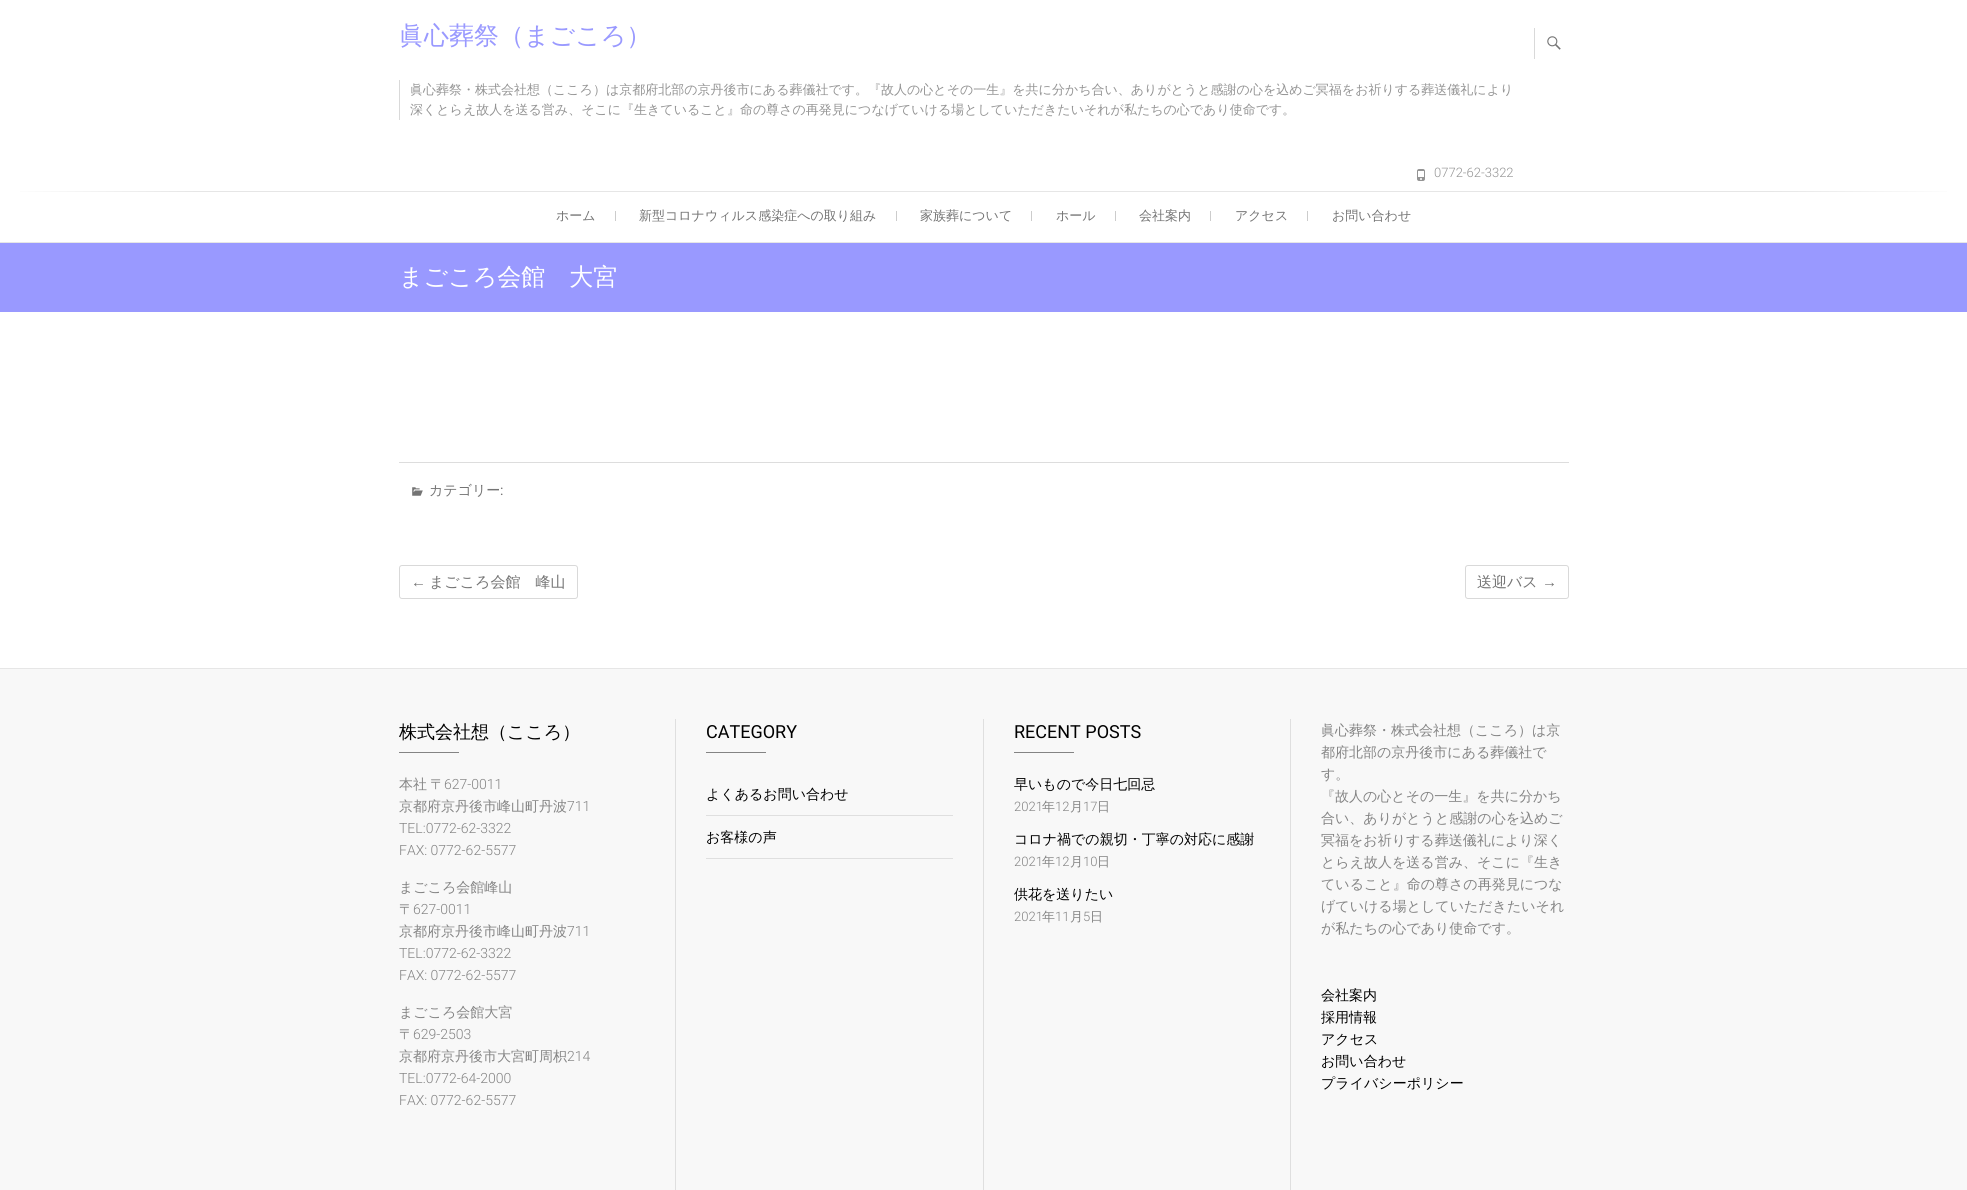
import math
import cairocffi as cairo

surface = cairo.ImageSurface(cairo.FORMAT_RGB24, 1967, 1190)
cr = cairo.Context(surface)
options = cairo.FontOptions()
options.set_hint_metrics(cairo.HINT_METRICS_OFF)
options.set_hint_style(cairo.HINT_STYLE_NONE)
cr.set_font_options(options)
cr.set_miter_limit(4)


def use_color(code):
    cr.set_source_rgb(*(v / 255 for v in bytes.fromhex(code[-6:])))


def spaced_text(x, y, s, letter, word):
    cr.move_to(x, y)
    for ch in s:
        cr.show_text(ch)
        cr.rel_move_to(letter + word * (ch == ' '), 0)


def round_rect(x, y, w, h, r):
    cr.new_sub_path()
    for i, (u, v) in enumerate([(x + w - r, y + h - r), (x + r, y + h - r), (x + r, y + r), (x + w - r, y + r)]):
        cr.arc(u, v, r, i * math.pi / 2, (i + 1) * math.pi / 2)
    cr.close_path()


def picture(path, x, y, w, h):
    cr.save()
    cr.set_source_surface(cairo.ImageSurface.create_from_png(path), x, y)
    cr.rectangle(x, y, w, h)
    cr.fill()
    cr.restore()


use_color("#ffffff")
cr.paint()
cr.select_font_face("WenQuanYi Zen Hei Medium")
cr.set_font_size(25)
use_color("#9999ff")
cr.move_to(399, 44)
cr.show_text("眞心葬祭（まごころ）")
use_color("#d9d9d9")
cr.rectangle(399, 80, 1, 40)
cr.fill()
cr.set_font_size(13)
use_color("#949494")
cr.move_to(410, 94)
cr.show_text("眞心葬祭・株式会社想（こころ）は京都府北部の京丹後市にある葬儀社です。『故人の心とその一生』を共に分かち合い、ありがとうと感謝の心を込めご冥福をお祈りする葬送儀礼により")
cr.move_to(410, 114)
cr.show_text("深くとらえ故人を送る営み、そこに『生きていること』命の尊さの再発見につなげていける場としていただきたいそれが私たちの心であり使命です。")
use_color("#d9d9d9")
cr.rectangle(1534, 28, 1, 31)
cr.fill()
picture("img1.png", 1547, 36, 14, 14)
picture("img2.png", 1417, 169, 8, 12)
cr.select_font_face("Roboto Light")
use_color("#949494")
cr.move_to(1434, 177)
cr.show_text("0772-62-3322")
use_color("#e6e6e6")
cr.rectangle(0, 242, 1967, 1)
cr.fill()
gradient = cairo.LinearGradient(0, 192, 1967, 191)
gradient.add_color_stop_rgba(0, 1, 1, 1, 1)
gradient.add_color_stop_rgba(0.1, 0.902, 0.902, 0.902, 1)
gradient.add_color_stop_rgba(0.9, 0.902, 0.902, 0.902, 1)
gradient.add_color_stop_rgba(1, 1, 1, 1, 1)
cr.set_source(gradient)
cr.rectangle(20, 191, 1927, 1)
cr.fill()
cr.select_font_face("WenQuanYi Zen Hei Medium")
use_color("#747474")
cr.move_to(556, 220)
cr.show_text("ホーム")
use_color("#cccccc")
cr.rectangle(615, 211, 1, 10)
cr.fill()
use_color("#747474")
cr.move_to(639, 220)
cr.show_text("新型コロナウィルス感染症への取り組み")
use_color("#cccccc")
cr.rectangle(896, 211, 1, 10)
cr.fill()
use_color("#747474")
cr.move_to(920, 220)
cr.show_text("家族葬について")
use_color("#cccccc")
cr.rectangle(1031, 211, 1, 10)
cr.fill()
use_color("#747474")
cr.move_to(1056, 220)
cr.show_text("ホール")
use_color("#cccccc")
cr.rectangle(1115, 211, 1, 10)
cr.fill()
use_color("#747474")
cr.move_to(1139, 220)
cr.show_text("会社案内")
use_color("#cccccc")
cr.rectangle(1210, 211, 1, 10)
cr.fill()
use_color("#747474")
cr.move_to(1235, 220)
cr.show_text("アクセス")
use_color("#cccccc")
cr.rectangle(1307, 211, 1, 10)
cr.fill()
use_color("#747474")
cr.move_to(1332, 220)
cr.show_text("お問い合わせ")
use_color("#9999ff")
cr.rectangle(0, 243, 1967, 69)
cr.fill()
cr.set_font_size(24)
use_color("#ffffff")
cr.move_to(399, 285)
cr.show_text("まごころ会館　大宮")
use_color("#dddddd")
cr.rectangle(399, 462, 1170, 1)
cr.fill()
picture("img3.png", 412, 487, 11, 9)
cr.set_font_size(14)
use_color("#747474")
cr.move_to(429, 495)
cr.show_text("カテゴリー")
cr.select_font_face("Roboto")
cr.move_to(500, 495)
cr.show_text(":")
round_rect(399.5, 565.5, 178, 33, 2.5)
use_color("#d9d9d9")
cr.set_line_width(1)
cr.stroke()
cr.select_font_face("Liberation Sans")
cr.set_font_size(15)
use_color("#747474")
cr.move_to(411, 587)
cr.show_text("←")
cr.select_font_face("WenQuanYi Zen Hei Medium")
cr.move_to(429, 587)
cr.show_text("まごころ会館　峰山")
round_rect(1465.5, 565.5, 103, 33, 2.5)
use_color("#d9d9d9")
cr.stroke()
use_color("#747474")
cr.move_to(1477, 587)
cr.show_text("送迎バス")
cr.select_font_face("Liberation Sans")
cr.move_to(1542, 587)
cr.show_text("→")
use_color("#e6e6e6")
cr.rectangle(0, 668, 1967, 1)
cr.fill()
use_color("#f8f8f8")
cr.rectangle(0, 669, 1967, 521)
cr.fill()
use_color("#dfdfdf")
cr.rectangle(675, 719, 1, 471)
cr.fill()
cr.select_font_face("WenQuanYi Zen Hei Medium")
cr.set_font_size(18)
use_color("#000000")
cr.move_to(399, 738)
cr.show_text("株式会社想（こころ）")
use_color("#848484")
cr.rectangle(399, 752, 60, 1)
cr.fill()
cr.set_font_size(14)
spaced_text(399, 789, "本社 〒", 0, -1)
cr.select_font_face("Roboto Light")
cr.move_to(444, 789)
cr.show_text("627-0011")
cr.select_font_face("WenQuanYi Zen Hei Medium")
cr.move_to(399, 811)
cr.show_text("京都府京丹後市峰山町丹波")
cr.select_font_face("Roboto Light")
cr.move_to(567, 811)
cr.show_text("711")
cr.move_to(399, 833)
cr.show_text("TEL:0772-62-3322")
cr.move_to(399, 855)
cr.show_text("FAX: 0772-62-5577")
cr.select_font_face("WenQuanYi Zen Hei Medium")
cr.move_to(399, 892)
cr.show_text("まごころ会館峰山")
cr.move_to(399, 914)
cr.show_text("〒")
cr.select_font_face("Roboto Light")
cr.move_to(413, 914)
cr.show_text("627-0011")
cr.select_font_face("WenQuanYi Zen Hei Medium")
cr.move_to(399, 936)
cr.show_text("京都府京丹後市峰山町丹波")
cr.select_font_face("Roboto Light")
cr.move_to(567, 936)
cr.show_text("711")
cr.move_to(399, 958)
cr.show_text("TEL:0772-62-3322")
cr.move_to(399, 980)
cr.show_text("FAX: 0772-62-5577")
cr.select_font_face("WenQuanYi Zen Hei Medium")
cr.move_to(399, 1017)
cr.show_text("まごころ会館大宮")
cr.move_to(399, 1039)
cr.show_text("〒")
cr.select_font_face("Roboto Light")
cr.move_to(413, 1039)
cr.show_text("629-2503")
cr.select_font_face("WenQuanYi Zen Hei Medium")
cr.move_to(399, 1061)
cr.show_text("京都府京丹後市大宮町周枳")
cr.select_font_face("Roboto Light")
cr.move_to(567, 1061)
cr.show_text("214")
cr.move_to(399, 1083)
cr.show_text("TEL:0772-64-2000")
cr.move_to(399, 1105)
cr.show_text("FAX: 0772-62-5577")
use_color("#dfdfdf")
cr.rectangle(983, 719, 1, 471)
cr.fill()
cr.select_font_face("Roboto")
cr.set_font_size(18)
use_color("#000000")
cr.move_to(706, 738)
cr.show_text("CATEGORY")
use_color("#848484")
cr.rectangle(706, 752, 60, 1)
cr.fill()
use_color("#dfdfdf")
cr.rectangle(706, 815, 247, 1)
cr.fill()
cr.select_font_face("WenQuanYi Zen Hei Medium")
cr.set_font_size(14)
use_color("#000000")
cr.move_to(706, 799)
cr.show_text("よくあるお問い合わせ")
use_color("#dfdfdf")
cr.rectangle(706, 858, 247, 1)
cr.fill()
use_color("#000000")
cr.move_to(706, 842)
cr.show_text("お客様の声")
use_color("#dfdfdf")
cr.rectangle(1290, 719, 1, 471)
cr.fill()
cr.select_font_face("Roboto")
cr.set_font_size(18)
use_color("#000000")
cr.move_to(1014, 738)
cr.show_text("RECENT POSTS")
use_color("#848484")
cr.rectangle(1014, 752, 60, 1)
cr.fill()
cr.select_font_face("WenQuanYi Zen Hei Medium")
cr.set_font_size(14)
use_color("#000000")
cr.move_to(1014, 789)
cr.show_text("早いもので今日七回忌")
cr.select_font_face("Roboto Light")
cr.set_font_size(13)
use_color("#848484")
cr.move_to(1014, 811)
cr.show_text("2021")
cr.select_font_face("WenQuanYi Zen Hei Medium")
cr.move_to(1042, 811)
cr.show_text("年")
cr.select_font_face("Roboto Light")
cr.move_to(1055, 811)
cr.show_text("12")
cr.select_font_face("WenQuanYi Zen Hei Medium")
cr.move_to(1070, 811)
cr.show_text("月")
cr.select_font_face("Roboto Light")
cr.move_to(1083, 811)
cr.show_text("17")
cr.select_font_face("WenQuanYi Zen Hei Medium")
cr.move_to(1097, 811)
cr.show_text("日")
cr.set_font_size(14)
use_color("#000000")
cr.move_to(1014, 844)
cr.show_text("コロナ禍での親切・丁寧の対応に感謝")
cr.select_font_face("Roboto Light")
cr.set_font_size(13)
use_color("#848484")
cr.move_to(1014, 866)
cr.show_text("2021")
cr.select_font_face("WenQuanYi Zen Hei Medium")
cr.move_to(1042, 866)
cr.show_text("年")
cr.select_font_face("Roboto Light")
cr.move_to(1055, 866)
cr.show_text("12")
cr.select_font_face("WenQuanYi Zen Hei Medium")
cr.move_to(1070, 866)
cr.show_text("月")
cr.select_font_face("Roboto Light")
cr.move_to(1083, 866)
cr.show_text("10")
cr.select_font_face("WenQuanYi Zen Hei Medium")
cr.move_to(1097, 866)
cr.show_text("日")
cr.set_font_size(14)
use_color("#000000")
cr.move_to(1014, 899)
cr.show_text("供花を送りたい")
cr.select_font_face("Roboto Light")
cr.set_font_size(13)
use_color("#848484")
cr.move_to(1014, 921)
cr.show_text("2021")
cr.select_font_face("WenQuanYi Zen Hei Medium")
cr.move_to(1042, 921)
cr.show_text("年")
cr.select_font_face("Roboto Light")
cr.move_to(1055, 921)
cr.show_text("11")
cr.select_font_face("WenQuanYi Zen Hei Medium")
cr.move_to(1070, 921)
cr.show_text("月")
cr.select_font_face("Roboto Light")
cr.move_to(1083, 921)
cr.show_text("5")
cr.select_font_face("WenQuanYi Zen Hei Medium")
cr.move_to(1090, 921)
cr.show_text("日")
cr.set_font_size(14)
cr.move_to(1321, 735)
cr.show_text("眞心葬祭・株式会社想（こころ）は京")
cr.move_to(1321, 757)
cr.show_text("都府北部の京丹後市にある葬儀社で")
cr.move_to(1321, 779)
cr.show_text("す。")
cr.move_to(1321, 801)
cr.show_text("『故人の心とその一生』を共に分かち")
cr.move_to(1321, 823)
cr.show_text("合い、ありがとうと感謝の心を込めご")
cr.move_to(1321, 845)
cr.show_text("冥福をお祈りする葬送儀礼により深く")
cr.move_to(1321, 867)
cr.show_text("とらえ故人を送る営み、そこに『生き")
cr.move_to(1321, 889)
cr.show_text("ていること』命の尊さの再発見につな")
cr.move_to(1321, 911)
cr.show_text("げていける場としていただきたいそれ")
cr.move_to(1321, 933)
cr.show_text("が私たちの心であり使命です。")
use_color("#000000")
cr.move_to(1321, 1000)
cr.show_text("会社案内")
cr.move_to(1321, 1022)
cr.show_text("採用情報")
cr.move_to(1321, 1044)
cr.show_text("アクセス")
cr.move_to(1321, 1066)
cr.show_text("お問い合わせ")
cr.move_to(1321, 1088)
cr.show_text("プライバシーポリシー")
surface.write_to_png("result.png")
